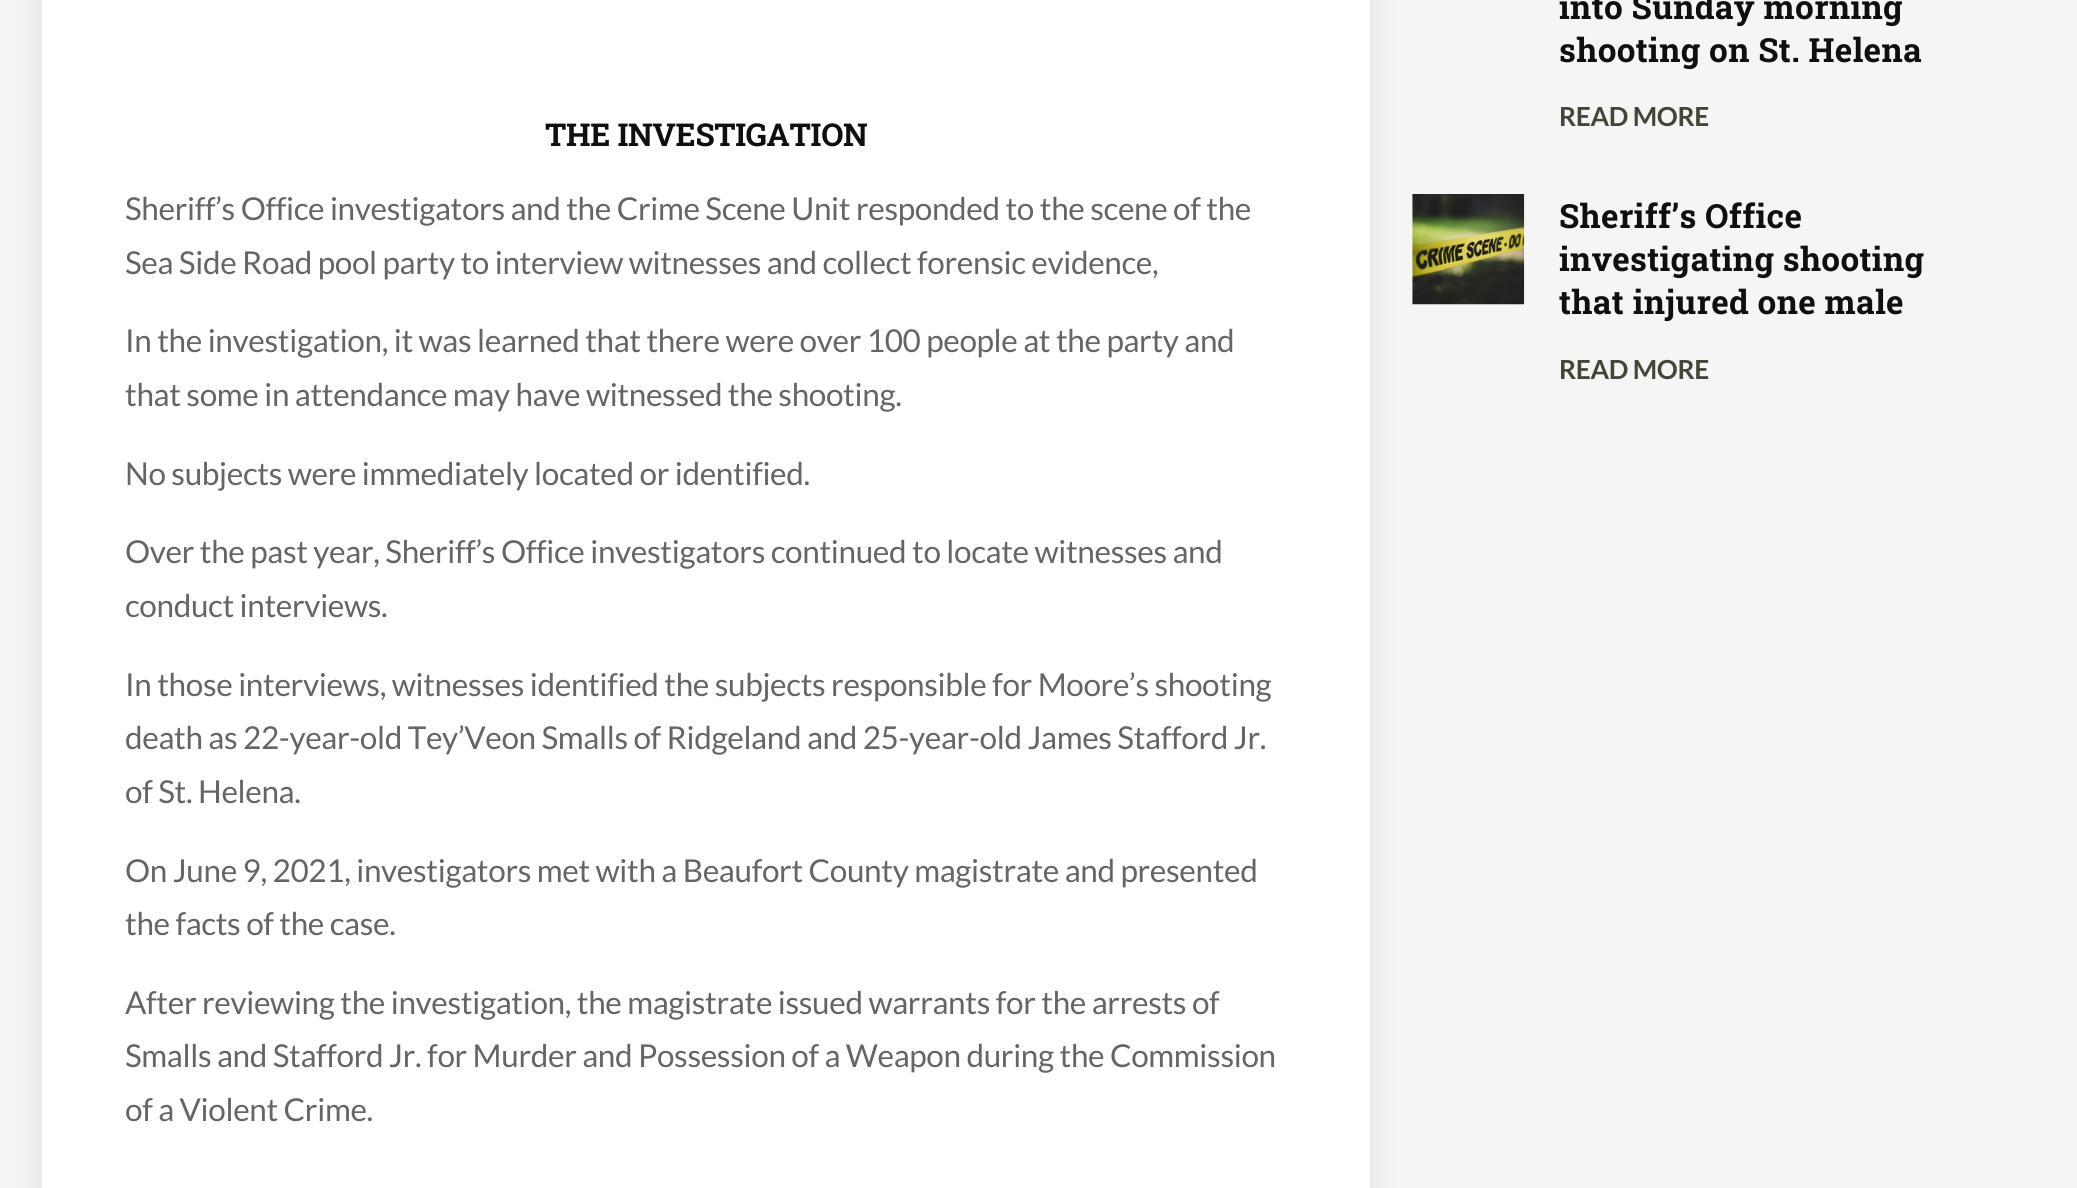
import math
import cairocffi as cairo

surface = cairo.ImageSurface(cairo.FORMAT_RGB24, 2077, 1188)
cr = cairo.Context(surface)
options = cairo.FontOptions()
options.set_hint_metrics(cairo.HINT_METRICS_OFF)
options.set_hint_style(cairo.HINT_STYLE_NONE)
cr.set_font_options(options)
cr.set_miter_limit(4)


def use_color(code):
    cr.set_source_rgb(*(v / 255 for v in bytes.fromhex(code[-6:])))


def spaced_text(x, y, s, letter, word):
    cr.move_to(x, y)
    for ch in s:
        cr.show_text(ch)
        cr.rel_move_to(letter + word * (ch == ' '), 0)


def round_rect(x, y, w, h, r):
    cr.new_sub_path()
    for i, (u, v) in enumerate([(x + w - r, y + h - r), (x + r, y + h - r), (x + r, y + r), (x + w - r, y + r)]):
        cr.arc(u, v, r, i * math.pi / 2, (i + 1) * math.pi / 2)
    cr.close_path()


def shadow(x, y, w, h, r, blur, alpha):
    cr.push_group_with_content(cairo.CONTENT_ALPHA)
    cr.set_operator(cairo.OPERATOR_SOURCE)
    for i in range(15, -16, -2):
        e = blur * i / 6
        if min(w, h) + 2 * e > 0:
            cr.set_source_rgba(0, 0, 0, alpha * math.erfc((i - 1) / 8.5) / 2)
            round_rect(x - e, y - e, w + 2 * e, h + 2 * e, max(0, min(r + e + blur * .6, min(w, h) / 2 + e)))
            cr.fill()
    cr.mask(cr.pop_group())


def picture(path, x, y, w, h):
    cr.save()
    cr.set_source_surface(cairo.ImageSurface.create_from_png(path), x, y)
    cr.rectangle(x, y, w, h)
    cr.fill()
    cr.restore()


use_color("#f5f5f5")
cr.paint()
use_color("#000000")
shadow(42, -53, 1328, 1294, 0, 17.5, 0.09)
use_color("#ffffff")
cr.rectangle(42, 0, 1328, 1188)
cr.fill()
cr.select_font_face("Roboto Slab", cairo.FONT_SLANT_NORMAL, cairo.FONT_WEIGHT_BOLD)
cr.set_font_size(31.5)
use_color("#0f0f10")
spaced_text(545, 146, "THE INVESTIGATION", -0.35, 0)
cr.select_font_face("Lato")
use_color("#656566")
spaced_text(125, 220, "Sheriff’s Office investigators and the Crime Scene Unit responded to the scene of the", -0.35, 0)
spaced_text(125, 274, "Sea Side Road pool party to interview witnesses and collect forensic evidence,", -0.35, 0)
spaced_text(125, 352, "In the investigation, it was learned that there were over 100 people at the party and", -0.35, 0)
spaced_text(125, 406, "that some in attendance may have witnessed the shooting.", -0.35, 0)
spaced_text(125, 485, "No subjects were immediately located or identified.", -0.35, 0)
spaced_text(125, 563, "Over the past year, Sheriff’s Office investigators continued to locate witnesses and", -0.35, 0)
spaced_text(125, 617, "conduct interviews.", -0.35, 0)
spaced_text(125, 696, "In those interviews, witnesses identified the subjects responsible for Moore’s shooting", -0.35, 0)
spaced_text(125, 749, "death as 22-year-old Tey’Veon Smalls of Ridgeland and 25-year-old James Stafford Jr.", -0.35, 0)
spaced_text(125, 803, "of St. Helena.", -0.35, 0)
spaced_text(125, 882, "On June 9, 2021, investigators met with a Beaufort County magistrate and presented", -0.35, 0)
spaced_text(125, 935, "the facts of the case.", -0.35, 0)
spaced_text(125, 1014, "After reviewing the investigation, the magistrate issued warrants for the arrests of", -0.35, 0)
spaced_text(125, 1067, "Smalls and Stafford Jr. for Murder and Possession of a Weapon during the Commission", -0.35, 0)
spaced_text(125, 1121, "of a Violent Crime.", -0.35, 0)
cr.select_font_face("Roboto Slab", cairo.FONT_SLANT_NORMAL, cairo.FONT_WEIGHT_BOLD)
cr.set_font_size(33.25)
use_color("#0f0f10")
spaced_text(1559, 19, "into Sunday morning", 0.35, 0)
spaced_text(1559, 62, "shooting on St. Helena", 0.35, 0)
cr.select_font_face("Lato", cairo.FONT_SLANT_NORMAL, cairo.FONT_WEIGHT_BOLD)
cr.set_font_size(26.25)
use_color("#434537")
spaced_text(1559, 126, "READ MORE", -0.35, 0)
picture("img1.png", 1412, 194, 113, 111)
cr.select_font_face("Roboto Slab", cairo.FONT_SLANT_NORMAL, cairo.FONT_WEIGHT_BOLD)
cr.set_font_size(33.25)
use_color("#0f0f10")
spaced_text(1559, 228, "Sheriff’s Office", 0.35, 0)
spaced_text(1559, 271, "investigating shooting", 0.35, 0)
spaced_text(1559, 314, "that injured one male", 0.35, 0)
cr.select_font_face("Lato", cairo.FONT_SLANT_NORMAL, cairo.FONT_WEIGHT_BOLD)
cr.set_font_size(26.25)
use_color("#434537")
spaced_text(1559, 379, "READ MORE", -0.35, 0)
surface.write_to_png("result.png")
